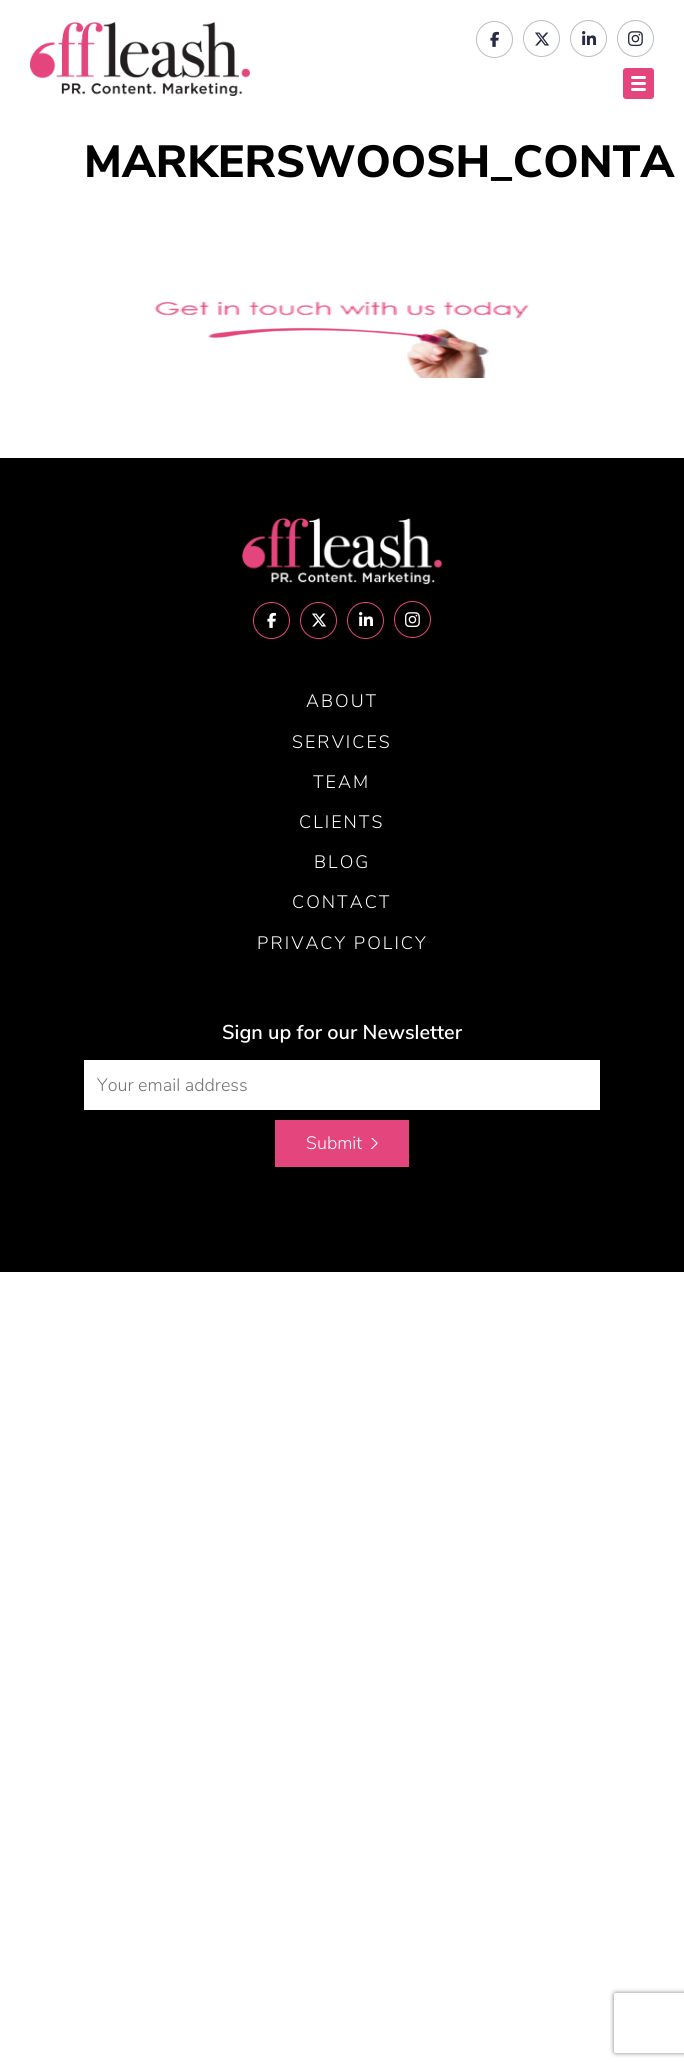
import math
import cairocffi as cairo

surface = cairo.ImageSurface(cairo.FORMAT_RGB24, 684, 2067)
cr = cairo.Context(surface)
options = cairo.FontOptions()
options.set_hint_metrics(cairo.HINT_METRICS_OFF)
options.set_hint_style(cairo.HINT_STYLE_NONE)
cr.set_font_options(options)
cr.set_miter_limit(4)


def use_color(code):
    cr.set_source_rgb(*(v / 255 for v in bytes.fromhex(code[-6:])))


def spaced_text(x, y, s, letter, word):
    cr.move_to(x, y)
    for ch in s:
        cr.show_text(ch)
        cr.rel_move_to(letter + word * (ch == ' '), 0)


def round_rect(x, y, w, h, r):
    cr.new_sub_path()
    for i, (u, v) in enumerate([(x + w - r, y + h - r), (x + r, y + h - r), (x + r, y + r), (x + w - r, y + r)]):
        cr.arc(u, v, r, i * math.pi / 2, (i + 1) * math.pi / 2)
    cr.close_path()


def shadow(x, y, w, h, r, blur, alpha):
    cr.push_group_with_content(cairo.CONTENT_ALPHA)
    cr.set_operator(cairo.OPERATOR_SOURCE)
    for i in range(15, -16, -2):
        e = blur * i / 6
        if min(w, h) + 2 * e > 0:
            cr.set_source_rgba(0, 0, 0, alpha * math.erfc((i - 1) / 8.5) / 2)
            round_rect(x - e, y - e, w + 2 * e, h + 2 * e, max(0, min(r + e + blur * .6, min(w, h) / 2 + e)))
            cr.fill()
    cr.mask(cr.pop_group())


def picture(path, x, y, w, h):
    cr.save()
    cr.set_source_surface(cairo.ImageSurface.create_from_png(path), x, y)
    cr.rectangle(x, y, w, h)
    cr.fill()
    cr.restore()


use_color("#ffffff")
cr.paint()
picture("img1.png", 30, 22, 220, 74)
cr.arc(494.5, 39.5, 18, 0, 2 * math.pi)
use_color("#bcbdc4")
cr.set_line_width(1)
cr.stroke()
picture("img2.png", 490, 31, 9, 16)
cr.arc(541.5, 38.5, 18, 0, 2 * math.pi)
cr.stroke()
picture("img3.png", 535, 32, 15, 14)
cr.arc(588.5, 38.5, 18, 0, 2 * math.pi)
cr.stroke()
picture("img4.png", 582, 31, 14, 14)
cr.arc(635.5, 38.5, 18, 0, 2 * math.pi)
cr.stroke()
picture("img5.png", 628, 31, 15, 16)
use_color("#e4457d")
round_rect(623, 68, 31, 31, 3)
cr.fill()
use_color("#ffffff")
round_rect(631, 76, 15, 3, 1.5)
cr.fill()
round_rect(631, 82, 15, 3, 1.5)
cr.fill()
round_rect(631, 88, 15, 3, 1.5)
cr.fill()
cr.select_font_face("Nunito Sans ExtraBold")
cr.set_font_size(45)
use_color("#000000")
cr.move_to(84, 177)
cr.show_text("MARKERSWOOSH_CONTA")
picture("img6.png", 154, 301, 375, 77)
cr.rectangle(0, 458, 684, 814)
cr.fill()
picture("img7.png", 242, 518, 200, 67)
cr.arc(271.5, 620.5, 18, 0, 2 * math.pi)
use_color("#e4457d")
cr.stroke()
picture("img8.png", 267, 612, 9, 16)
cr.arc(318.5, 620.5, 18, 0, 2 * math.pi)
cr.stroke()
picture("img9.png", 312, 613, 15, 14)
cr.arc(365.5, 620.5, 18, 0, 2 * math.pi)
cr.stroke()
picture("img10.png", 359, 612, 14, 14)
cr.arc(412.5, 619.5, 18, 0, 2 * math.pi)
cr.stroke()
picture("img11.png", 405, 612, 15, 16)
cr.select_font_face("Nunito Sans Light")
cr.set_font_size(18)
use_color("#ffffff")
spaced_text(306, 707, "ABOUT", 2, 0)
spaced_text(292, 748, "SERVICES", 2, 0)
spaced_text(313, 788, "TEAM", 2, 0)
spaced_text(299, 828, "CLIENTS", 2, 0)
spaced_text(314, 868, "BLOG", 2, 0)
spaced_text(292, 908, "CONTACT", 2, 0)
spaced_text(257, 949, "PRIVACY POLICY", 2, 0)
cr.select_font_face("Nunito Sans SemiBold")
cr.set_font_size(20)
cr.move_to(222, 1039)
cr.show_text("Sign up for our Newsletter")
cr.rectangle(84, 1060, 516, 50)
cr.fill()
cr.select_font_face("Nunito Sans Light")
cr.set_font_size(18)
use_color("#757575")
cr.move_to(97, 1091)
cr.show_text("Your email address")
use_color("#e4457d")
cr.rectangle(275, 1120, 134, 47)
cr.fill()
use_color("#ffffff")
cr.move_to(306, 1149)
cr.show_text("Submit")
picture("img12.png", 370, 1138, 8, 11)
cr.save()
cr.set_fill_rule(cairo.FILL_RULE_EVEN_ODD)
cr.new_path()
cr.move_to(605, 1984)
cr.line_to(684, 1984)
cr.line_to(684, 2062)
cr.line_to(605, 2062)
cr.close_path()
cr.move_to(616, 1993)
cr.line_to(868, 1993)
cr.curve_to(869, 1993, 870, 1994, 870, 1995)
cr.line_to(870, 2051)
cr.curve_to(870, 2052, 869, 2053, 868, 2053)
cr.line_to(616, 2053)
cr.curve_to(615, 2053, 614, 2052, 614, 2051)
cr.line_to(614, 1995)
cr.curve_to(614, 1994, 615, 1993, 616, 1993)
cr.close_path()
cr.clip()
use_color("#808080")
shadow(614, 1993, 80, 60, 2, 2.5, 1)
cr.restore()
surface.write_to_png("result.png")
